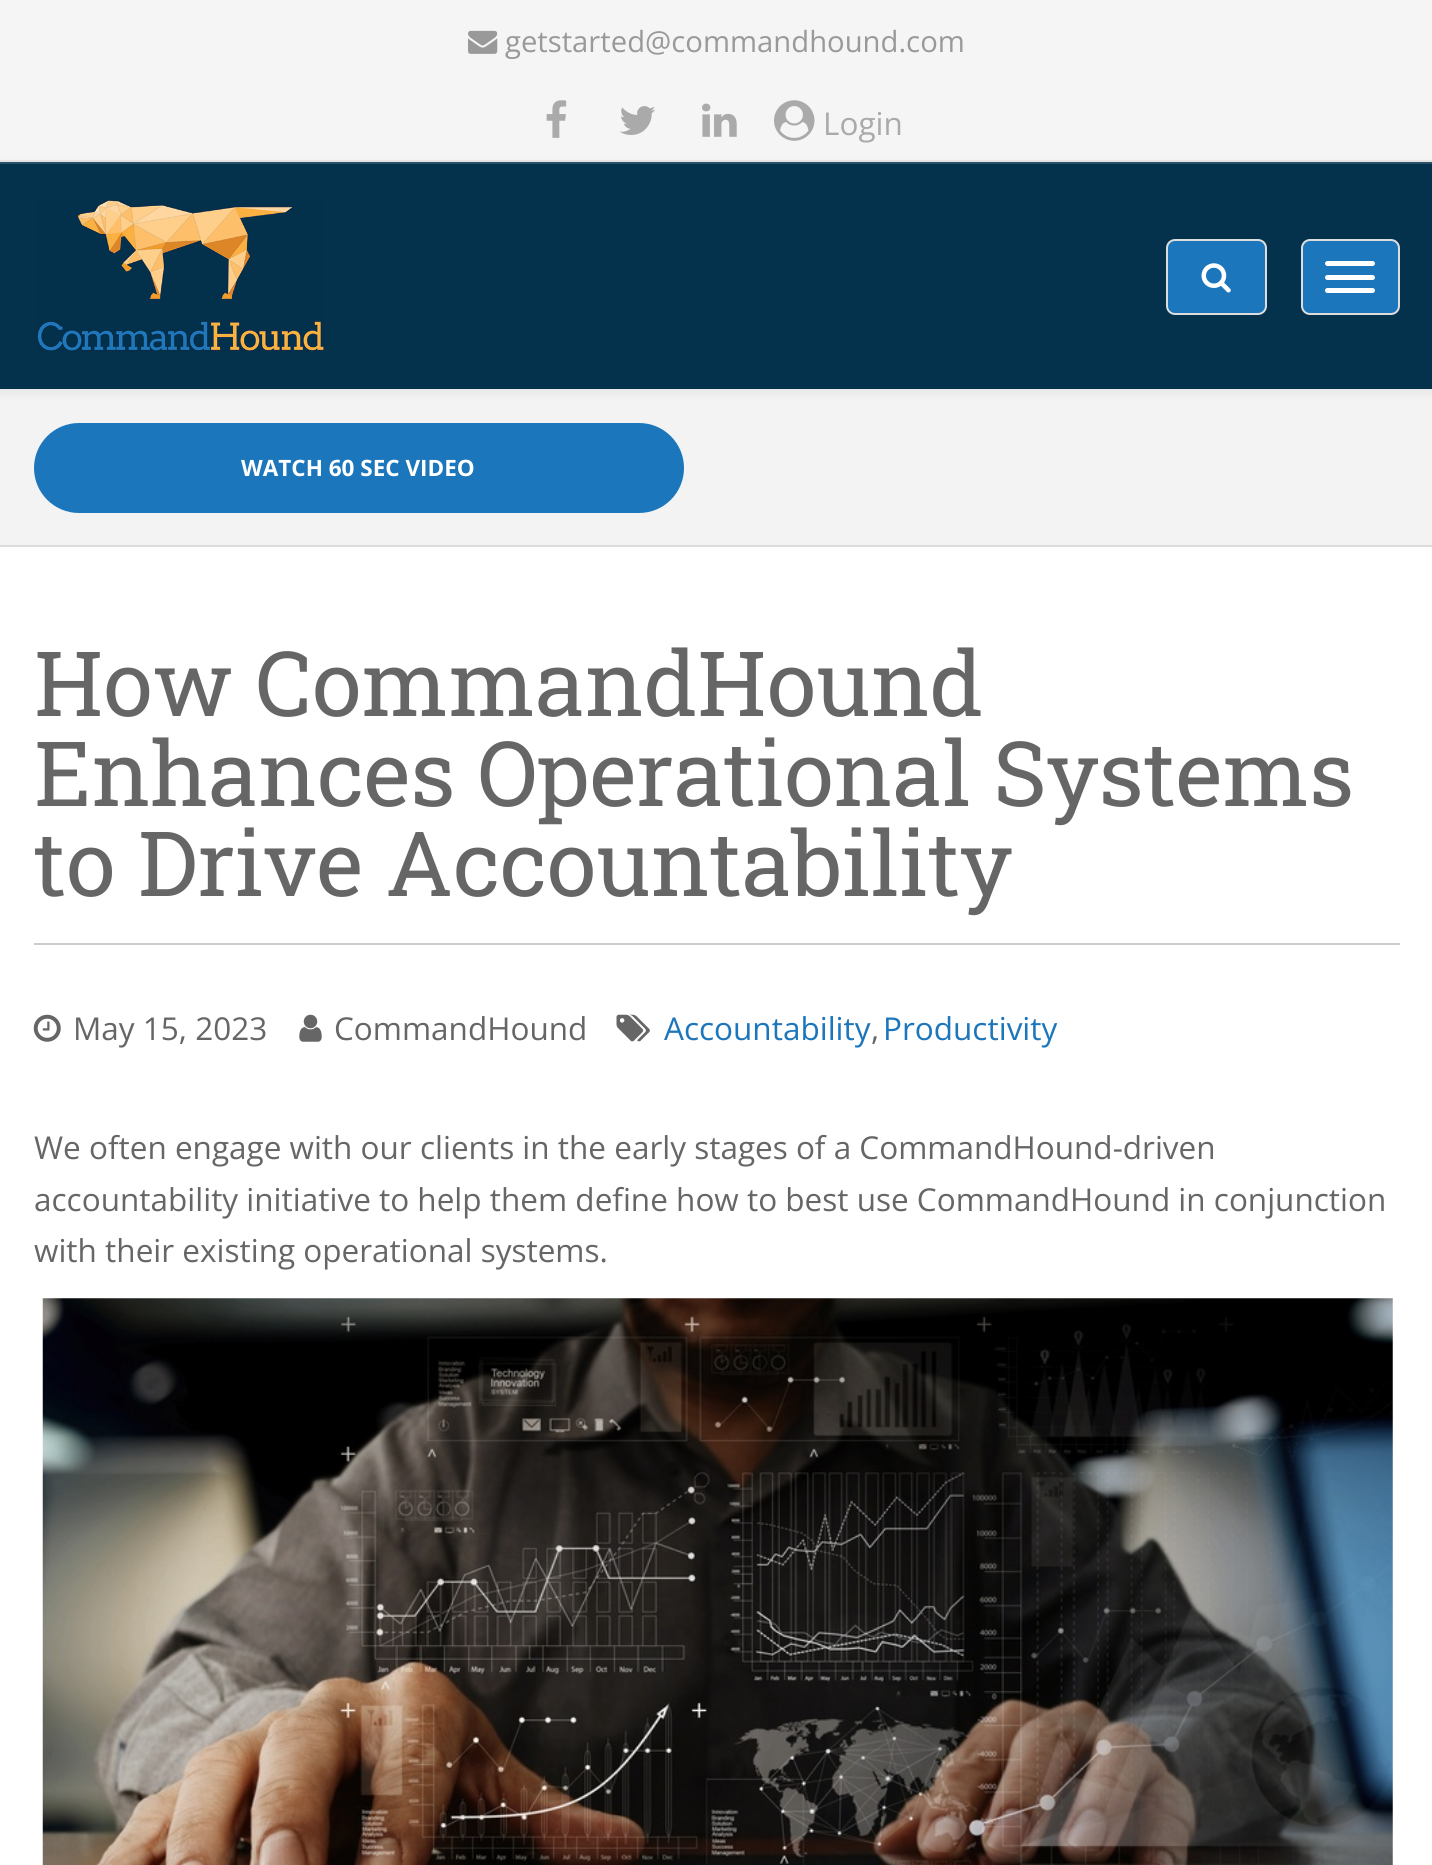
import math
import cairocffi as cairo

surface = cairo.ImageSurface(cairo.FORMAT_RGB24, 1432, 1865)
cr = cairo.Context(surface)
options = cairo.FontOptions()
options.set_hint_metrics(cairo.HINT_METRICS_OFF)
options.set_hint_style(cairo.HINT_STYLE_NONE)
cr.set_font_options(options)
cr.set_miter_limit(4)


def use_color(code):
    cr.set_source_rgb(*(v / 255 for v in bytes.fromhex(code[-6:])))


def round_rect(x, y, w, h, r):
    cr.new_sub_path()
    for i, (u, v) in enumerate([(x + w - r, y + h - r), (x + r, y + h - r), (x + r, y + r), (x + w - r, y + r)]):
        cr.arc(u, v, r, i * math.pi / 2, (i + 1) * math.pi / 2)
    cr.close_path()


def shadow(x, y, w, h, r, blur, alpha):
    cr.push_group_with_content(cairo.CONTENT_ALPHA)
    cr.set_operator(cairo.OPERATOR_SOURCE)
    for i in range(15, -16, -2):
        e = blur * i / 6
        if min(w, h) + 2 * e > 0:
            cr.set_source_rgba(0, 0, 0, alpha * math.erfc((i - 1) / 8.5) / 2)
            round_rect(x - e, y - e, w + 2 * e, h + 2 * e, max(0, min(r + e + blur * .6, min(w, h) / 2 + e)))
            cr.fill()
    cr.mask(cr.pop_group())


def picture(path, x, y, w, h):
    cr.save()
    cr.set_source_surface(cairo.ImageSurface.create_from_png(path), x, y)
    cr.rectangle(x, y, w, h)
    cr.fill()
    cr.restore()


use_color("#ffffff")
cr.paint()
use_color("#f5f5f5")
cr.rectangle(0, 0, 1432, 160)
cr.fill()
use_color("#e8e8e8")
cr.rectangle(0, 160, 1432, 2)
cr.fill()
picture("img1.png", 468, 30, 30, 24)
cr.select_font_face("Open Sans")
cr.set_font_size(29.25)
use_color("#999999")
cr.move_to(505, 52)
cr.show_text("getstarted@commandhound.com")
picture("img2.png", 546, 100, 21, 38)
picture("img3.png", 620, 106, 36, 29)
picture("img4.png", 702, 103, 35, 34)
picture("img5.png", 774, 100, 41, 41)
cr.set_font_size(31.5)
use_color("#aaaaaa")
cr.move_to(823, 135)
cr.show_text("Login")
use_color("#f3f3f3")
cr.rectangle(0, 389, 1432, 156)
cr.fill()
use_color("#000000")
shadow(0, 164, 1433, 228, 0, 5.5, 0.07)
use_color("#04314c")
cr.rectangle(0, 164, 1432, 225)
cr.fill()
use_color("#2a5067")
cr.rectangle(0, 162, 1432, 2)
cr.fill()
picture("img6.png", 37, 200, 288, 152)
use_color("#1c76bc")
round_rect(1167, 240, 99, 74, 8)
cr.fill_preserve()
use_color("#dddddd")
cr.stroke()
picture("img7.png", 1201, 263, 30, 30)
use_color("#1c76bc")
round_rect(1302, 240, 97, 74, 8)
cr.fill_preserve()
use_color("#dddddd")
cr.stroke()
use_color("#ffffff")
round_rect(1325, 261, 50, 5, 2.5)
cr.fill()
round_rect(1325, 275, 50, 5, 2.5)
cr.fill()
round_rect(1325, 288, 50, 5, 2.5)
cr.fill()
use_color("#dcdcdc")
cr.rectangle(0, 545, 1432, 2)
cr.fill()
use_color("#1c76bc")
round_rect(34, 423, 650, 90, 45)
cr.fill()
cr.select_font_face("Open Sans", cairo.FONT_SLANT_NORMAL, cairo.FONT_WEIGHT_BOLD)
cr.set_font_size(22.5)
use_color("#ffffff")
cr.move_to(241, 476)
cr.show_text("WATCH 60 SEC VIDEO")
use_color("#cccccc")
cr.rectangle(34, 943, 1366, 2)
cr.fill()
cr.select_font_face("Roboto Slab")
cr.set_font_size(90)
use_color("#666666")
cr.move_to(34, 716)
cr.show_text("How CommandHound")
cr.move_to(34, 806)
cr.show_text("Enhances Operational Systems")
cr.move_to(34, 896)
cr.show_text("to Drive Accountability")
picture("img8.png", 33, 1014, 28, 28)
cr.select_font_face("Open Sans")
cr.set_font_size(31.5)
cr.move_to(73, 1040)
cr.show_text("May 15, 2023")
picture("img9.png", 299, 1014, 23, 28)
cr.move_to(334, 1040)
cr.show_text("CommandHound")
picture("img10.png", 616, 1014, 34, 28)
use_color("#1c76bc")
cr.move_to(664, 1040)
cr.show_text("Accountability")
use_color("#666666")
cr.move_to(871, 1040)
cr.show_text(",")
use_color("#1c76bc")
cr.move_to(883, 1040)
cr.show_text("Productivity")
use_color("#666666")
cr.move_to(34, 1159)
cr.show_text("We often engage with our clients in the early stages of a CommandHound-driven")
cr.move_to(34, 1211)
cr.show_text("accountability initiative to help them define how to best use CommandHound in conjunction")
cr.move_to(34, 1262)
cr.show_text("with their existing operational systems.")
picture("img11.png", 42, 1298, 1351, 567)
surface.write_to_png("result.png")
